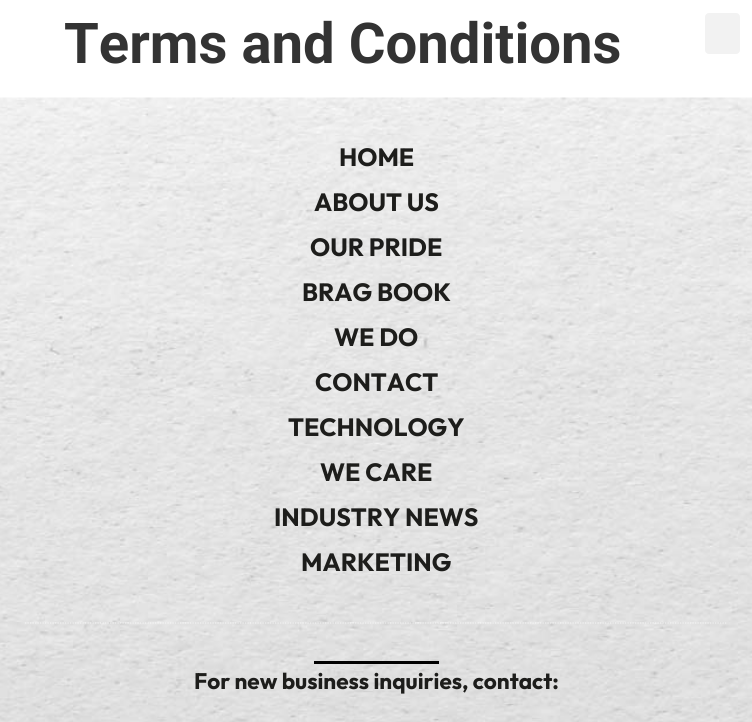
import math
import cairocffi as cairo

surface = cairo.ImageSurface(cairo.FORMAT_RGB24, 752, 722)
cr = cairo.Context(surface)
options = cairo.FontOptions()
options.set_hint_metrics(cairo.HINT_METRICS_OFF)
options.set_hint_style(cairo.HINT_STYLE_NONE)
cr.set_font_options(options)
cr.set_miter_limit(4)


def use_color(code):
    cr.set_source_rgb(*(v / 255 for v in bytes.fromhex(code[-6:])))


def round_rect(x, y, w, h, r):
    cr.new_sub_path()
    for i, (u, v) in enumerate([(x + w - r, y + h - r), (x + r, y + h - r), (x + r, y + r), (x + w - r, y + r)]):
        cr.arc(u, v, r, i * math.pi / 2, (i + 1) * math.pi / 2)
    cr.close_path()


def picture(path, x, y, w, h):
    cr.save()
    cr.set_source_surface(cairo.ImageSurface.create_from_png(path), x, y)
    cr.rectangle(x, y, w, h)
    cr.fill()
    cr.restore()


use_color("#ffffff")
cr.paint()
cr.select_font_face("Roboto", cairo.FONT_SLANT_NORMAL, cairo.FONT_WEIGHT_BOLD)
cr.set_font_size(56.25)
use_color("#333333")
cr.move_to(64, 63)
cr.show_text("Terms and Conditions")
use_color("#f2f2f2")
round_rect(705, 13, 35, 41, 4)
cr.fill()
picture("img1.png", 0, 97, 752, 625)
cr.select_font_face("Outfit", cairo.FONT_SLANT_NORMAL, cairo.FONT_WEIGHT_BOLD)
cr.set_font_size(25)
use_color("#1d1d1b")
cr.move_to(339, 166)
cr.show_text("HOME")
cr.move_to(314, 211)
cr.show_text("ABOUT US")
cr.move_to(310, 256)
cr.show_text("OUR PRIDE")
cr.move_to(302, 301)
cr.show_text("BRAG BOOK")
cr.move_to(334, 346)
cr.show_text("WE DO")
cr.move_to(315, 391)
cr.show_text("CONTACT")
cr.move_to(288, 436)
cr.show_text("TECHNOLOGY")
cr.move_to(320, 481)
cr.show_text("WE CARE")
cr.move_to(274, 526)
cr.show_text("INDUSTRY NEWS")
cr.move_to(301, 571)
cr.show_text("MARKETING")
cr.new_path()
cr.move_to(25, 623)
cr.line_to(727.5, 623)
cr.set_source_rgba(1, 1, 1, 0.59)
cr.set_line_width(1.2)
cr.set_dash([1.25, 1.25])
cr.stroke()
use_color("#000000")
cr.rectangle(314, 661, 125, 3)
cr.fill()
cr.set_font_size(22.5)
use_color("#1d1d1b")
cr.move_to(194, 689)
cr.show_text("For new business inquiries, contact:")
surface.write_to_png("result.png")
